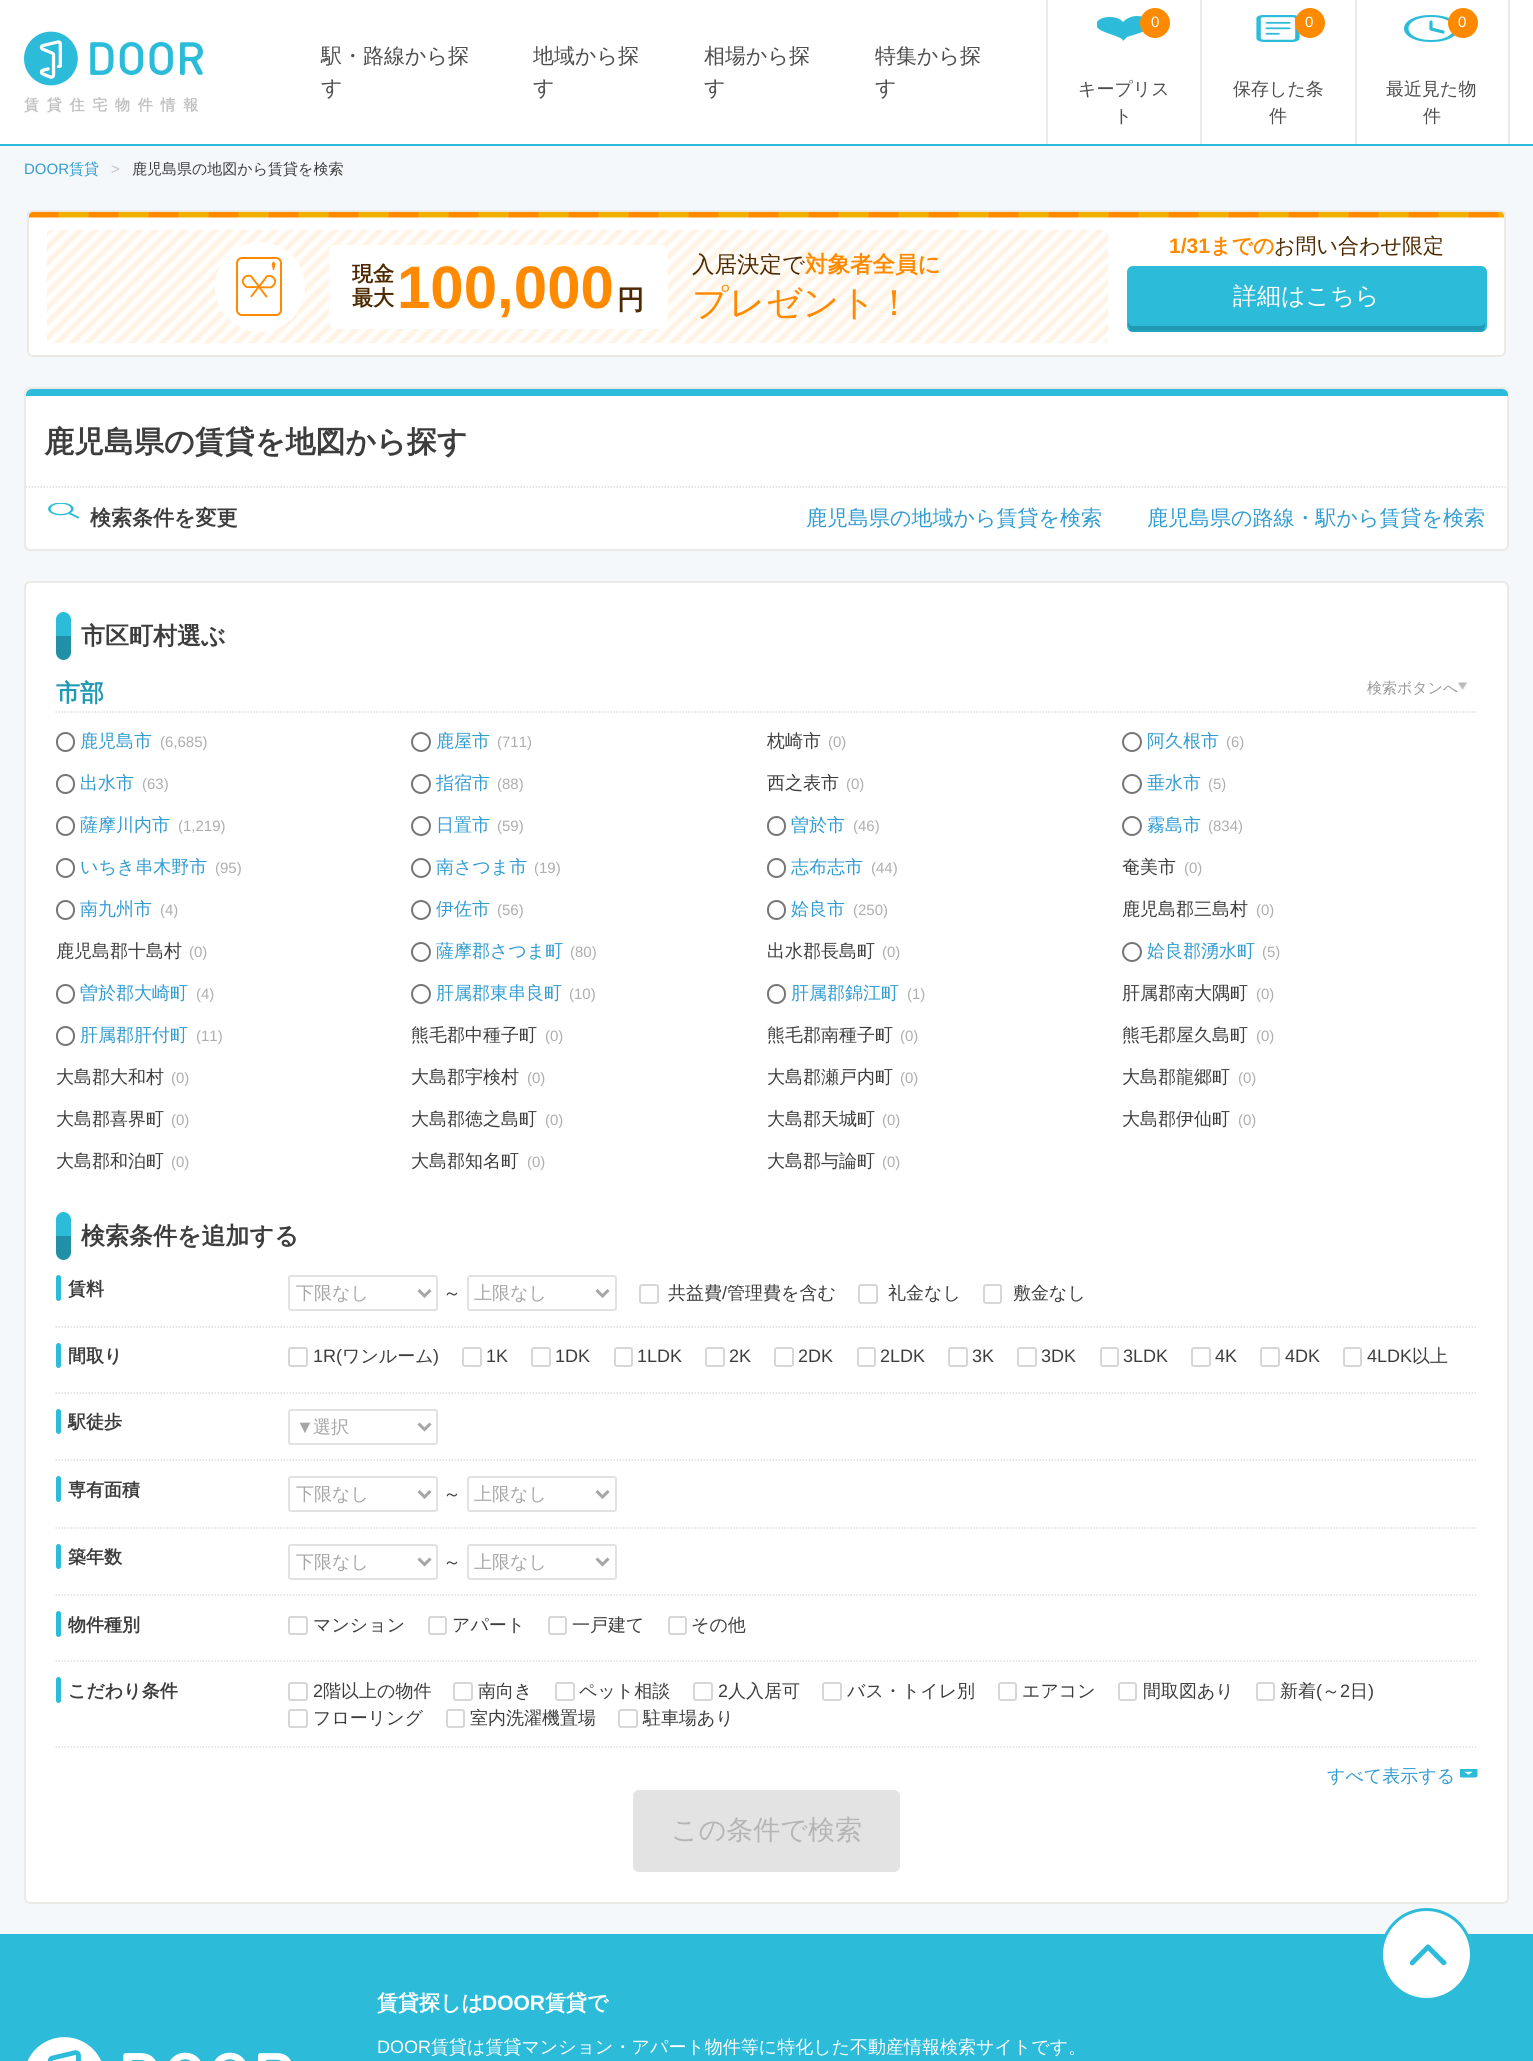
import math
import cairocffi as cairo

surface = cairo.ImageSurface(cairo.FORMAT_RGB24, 1533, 2061)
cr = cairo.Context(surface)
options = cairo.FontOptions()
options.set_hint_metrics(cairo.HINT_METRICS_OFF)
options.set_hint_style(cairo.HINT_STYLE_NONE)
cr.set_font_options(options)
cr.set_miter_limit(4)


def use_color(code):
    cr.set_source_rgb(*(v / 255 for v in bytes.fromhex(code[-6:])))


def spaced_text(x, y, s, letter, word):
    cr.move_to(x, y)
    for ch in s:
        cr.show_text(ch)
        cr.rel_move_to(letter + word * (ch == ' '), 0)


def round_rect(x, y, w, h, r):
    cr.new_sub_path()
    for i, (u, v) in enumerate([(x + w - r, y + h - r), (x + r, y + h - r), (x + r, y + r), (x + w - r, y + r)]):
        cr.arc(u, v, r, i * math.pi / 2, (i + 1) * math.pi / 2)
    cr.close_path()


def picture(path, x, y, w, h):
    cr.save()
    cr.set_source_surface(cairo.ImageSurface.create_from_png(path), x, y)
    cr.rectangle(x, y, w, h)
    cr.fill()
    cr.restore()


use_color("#f5f8fa")
cr.paint()
use_color("#ffffff")
cr.rectangle(0, 0, 1533, 144)
cr.fill()
use_color("#2cbcd9")
cr.rectangle(0, 144, 1533, 2)
cr.fill()
picture("img1.png", 24, 31, 179, 55)
cr.select_font_face("WenQuanYi Zen Hei", cairo.FONT_SLANT_NORMAL, cairo.FONT_WEIGHT_BOLD)
cr.set_font_size(15)
use_color("#c2c2c2")
spaced_text(24, 110, "賃貸住宅物件情報", 7.75, 0)
cr.select_font_face("WenQuanYi Zen Hei Medium")
cr.set_font_size(21)
use_color("#4d4d4d")
cr.move_to(321, 63)
cr.show_text("駅・路線から探")
cr.move_to(321, 95)
cr.show_text("す")
cr.move_to(533, 63)
cr.show_text("地域から探")
cr.move_to(533, 95)
cr.show_text("す")
cr.move_to(704, 63)
cr.show_text("相場から探")
cr.move_to(704, 95)
cr.show_text("す")
cr.move_to(875, 63)
cr.show_text("特集から探")
cr.move_to(875, 95)
cr.show_text("す")
use_color("#ebeae7")
cr.rectangle(1200, 0, 2, 144)
cr.fill()
cr.rectangle(1046, 0, 2, 144)
cr.fill()
cr.save()
cr.rectangle(1097, 15, 54, 27)
cr.clip()
use_color("#2cbcd9")
cr.new_path()
cr.move_to(1137, 16)
cr.curve_to(1128, 16, 1123, 22, 1123, 22)
cr.curve_to(1116, 13, 1092, 17, 1097, 27)
cr.curve_to(1100, 33, 1123, 36, 1123, 41)
cr.line_to(1127, 37)
cr.curve_to(1132, 35, 1158, 30, 1149, 20)
cr.curve_to(1146, 17, 1141, 16, 1137, 16)
cr.close_path()
cr.fill()
cr.restore()
use_color("#ff8a00")
cr.arc(1155, 23, 15, 0, 2 * math.pi)
cr.fill()
cr.select_font_face("Liberation Sans")
cr.set_font_size(15)
use_color("#ffffff")
cr.move_to(1151, 27)
cr.show_text("0")
cr.select_font_face("WenQuanYi Zen Hei Medium")
cr.set_font_size(18)
use_color("#4d4d4d")
cr.move_to(1078, 95)
cr.show_text("キープリス")
cr.move_to(1114, 122)
cr.show_text("ト")
use_color("#ebeae7")
cr.rectangle(1355, 0, 2, 144)
cr.fill()
picture("img2.png", 1256, 15, 44, 27)
use_color("#ff8a00")
cr.arc(1310, 23, 15, 0, 2 * math.pi)
cr.fill()
cr.select_font_face("Liberation Sans")
cr.set_font_size(15)
use_color("#ffffff")
cr.move_to(1305, 27)
cr.show_text("0")
cr.select_font_face("WenQuanYi Zen Hei Medium")
cr.set_font_size(18)
use_color("#4d4d4d")
cr.move_to(1233, 95)
cr.show_text("保存した条")
cr.move_to(1269, 122)
cr.show_text("件")
use_color("#ebeae7")
cr.rectangle(1508, 0, 2, 144)
cr.fill()
use_color("#2cbcd9")
cr.new_path()
cr.move_to(1431, 17)
cr.curve_to(1461, 17, 1461, 40, 1431, 40)
cr.curve_to(1401, 40, 1401, 17, 1431, 17)
cr.move_to(1431, 15)
cr.curve_to(1395, 15, 1395, 42, 1431, 42)
cr.curve_to(1467, 42, 1467, 15, 1431, 15)
cr.close_path()
cr.fill()
use_color("#ff8a00")
cr.arc(1463, 23, 15, 0, 2 * math.pi)
cr.fill()
cr.select_font_face("Liberation Sans")
cr.set_font_size(15)
use_color("#ffffff")
cr.move_to(1458, 27)
cr.show_text("0")
cr.new_path()
cr.move_to(1431, 22)
cr.line_to(1431, 29)
cr.line_to(1443, 32)
use_color("#2cbcd9")
cr.set_line_width(3.2)
cr.set_line_cap(cairo.LINE_CAP_ROUND)
cr.set_line_join(cairo.LINE_JOIN_ROUND)
cr.stroke()
cr.select_font_face("WenQuanYi Zen Hei Medium")
cr.set_font_size(18)
use_color("#4d4d4d")
cr.move_to(1386, 95)
cr.show_text("最近見た物")
cr.move_to(1423, 122)
cr.show_text("件")
cr.select_font_face("Liberation Sans")
cr.set_font_size(15)
use_color("#329cd1")
cr.move_to(24, 174)
cr.show_text("DOOR")
cr.select_font_face("WenQuanYi Zen Hei Medium")
cr.move_to(69, 174)
cr.show_text("賃貸")
cr.select_font_face("Liberation Sans")
use_color("#c2c2c2")
cr.move_to(111, 174)
cr.show_text(">")
cr.select_font_face("WenQuanYi Zen Hei Medium")
use_color("#3d3d3d")
cr.move_to(132, 174)
cr.show_text("鹿児島県の地図から賃貸を検索")
use_color("#ffffff")
round_rect(27, 210, 1479, 147, 6)
cr.fill()
picture("img3.png", 27, 211, 1479, 7)
round_rect(28, 211, 1477, 145, 5)
use_color("#ebeae7")
cr.set_line_width(2)
cr.set_line_cap(cairo.LINE_CAP_BUTT)
cr.set_line_join(cairo.LINE_JOIN_MITER)
cr.stroke()
picture("img4.png", 46, 229, 1063, 115)
use_color("#ffffff")
cr.arc(260, 287, 45, 0, 2 * math.pi)
cr.fill()
picture("img5.png", 236, 257, 46, 59)
round_rect(329, 245, 339, 84, 6)
cr.fill()
cr.select_font_face("WenQuanYi Zen Hei", cairo.FONT_SLANT_NORMAL, cairo.FONT_WEIGHT_BOLD)
cr.set_font_size(21)
use_color("#4d2900")
cr.move_to(352, 281)
cr.show_text("現金")
cr.move_to(352, 305)
cr.show_text("最大")
cr.select_font_face("Liberation Sans", cairo.FONT_SLANT_NORMAL, cairo.FONT_WEIGHT_BOLD)
cr.set_font_size(60)
use_color("#ff8a00")
cr.move_to(397, 308)
cr.show_text("100,000")
cr.select_font_face("WenQuanYi Zen Hei", cairo.FONT_SLANT_NORMAL, cairo.FONT_WEIGHT_BOLD)
cr.set_font_size(27)
use_color("#4d2900")
cr.move_to(617, 309)
cr.show_text("円")
cr.select_font_face("WenQuanYi Zen Hei Medium")
cr.set_font_size(22.5)
cr.move_to(692, 272)
cr.show_text("入居決定で")
cr.select_font_face("WenQuanYi Zen Hei", cairo.FONT_SLANT_NORMAL, cairo.FONT_WEIGHT_BOLD)
use_color("#ff8a00")
cr.move_to(805, 272)
cr.show_text("対象者全員に")
cr.select_font_face("WenQuanYi Zen Hei Medium")
cr.set_font_size(36)
cr.move_to(692, 315)
cr.show_text("プレゼント！")
cr.select_font_face("Liberation Sans", cairo.FONT_SLANT_NORMAL, cairo.FONT_WEIGHT_BOLD)
cr.set_font_size(21)
cr.move_to(1169, 253)
cr.show_text("1/31")
cr.select_font_face("WenQuanYi Zen Hei", cairo.FONT_SLANT_NORMAL, cairo.FONT_WEIGHT_BOLD)
cr.move_to(1210, 253)
cr.show_text("までの")
cr.select_font_face("WenQuanYi Zen Hei Medium")
use_color("#4d2900")
cr.move_to(1274, 253)
cr.show_text("お問い合わせ限定")
use_color("#2cbcd9")
round_rect(1127, 266, 360, 66, 6)
cr.fill()
use_color("#2099b2")
cr.new_path()
cr.move_to(1128, 321)
cr.curve_to(1128, 325, 1128, 330, 1133, 330)
cr.line_to(1480, 330)
cr.curve_to(1485, 330, 1485, 325, 1485, 321)
cr.curve_to(1485, 323, 1483, 326, 1480, 326)
cr.line_to(1132, 326)
cr.curve_to(1130, 326, 1128, 323, 1128, 321)
cr.close_path()
cr.fill()
cr.new_path()
cr.move_to(1484, 329)
cr.curve_to(1483, 330, 1482, 331, 1480.5, 331)
cr.line_to(1132.5, 331)
cr.curve_to(1131, 331, 1130, 330, 1129, 329)
cr.set_line_width(1.5)
cr.stroke()
cr.set_font_size(24)
use_color("#ffffff")
cr.move_to(1233, 304)
cr.show_text("詳細はこちら")
round_rect(25, 388, 1483, 162, 5)
cr.fill_preserve()
use_color("#ebeae7")
cr.set_line_width(2)
cr.stroke()
use_color("#2cbcd9")
cr.new_path()
cr.move_to(32, 389)
cr.line_to(1502, 389)
cr.curve_to(1505.5, 389, 1508, 391.5, 1508, 395)
cr.line_to(1508, 396)
cr.line_to(26, 396)
cr.line_to(26, 395)
cr.curve_to(26, 391.5, 28.5, 389, 32, 389)
cr.close_path()
cr.fill()
cr.select_font_face("WenQuanYi Zen Hei", cairo.FONT_SLANT_NORMAL, cairo.FONT_WEIGHT_BOLD)
cr.set_font_size(30)
use_color("#3d3d3d")
cr.move_to(44, 452)
cr.show_text("鹿児島県の賃貸を地図から探す")
cr.new_path()
cr.move_to(25.5, 487)
cr.line_to(1507.5, 487)
use_color("#dfded9")
cr.set_line_width(1.5)
cr.set_dash([1.5, 1.5])
cr.stroke()
picture("img6.png", 48, 503, 32, 16)
cr.set_font_size(21)
use_color("#3d3d3d")
cr.move_to(90, 525)
cr.show_text("検索条件を変更")
cr.select_font_face("WenQuanYi Zen Hei Medium")
use_color("#329cd1")
cr.move_to(806, 525)
cr.show_text("鹿児島県の地域から賃貸を検索")
cr.move_to(1147, 525)
cr.show_text("鹿児島県の路線・駅から賃貸を検索")
use_color("#ffffff")
round_rect(25, 582, 1483, 1321, 5)
cr.fill_preserve()
use_color("#ebeae7")
cr.set_line_width(2)
cr.set_dash([])
cr.stroke()
use_color("#2cbcd9")
cr.new_path()
cr.move_to(63.5, 612)
cr.curve_to(67.5, 612, 71, 615.5, 71, 619.5)
cr.line_to(71, 636)
cr.line_to(56, 636)
cr.line_to(56, 619.5)
cr.curve_to(56, 615.5, 59.5, 612, 63.5, 612)
cr.close_path()
cr.fill()
use_color("#2190a6")
cr.new_path()
cr.move_to(56, 636)
cr.line_to(71, 636)
cr.line_to(71, 652.5)
cr.curve_to(71, 656.5, 67.5, 660, 63.5, 660)
cr.curve_to(59.5, 660, 56, 656.5, 56, 652.5)
cr.close_path()
cr.fill()
cr.select_font_face("WenQuanYi Zen Hei", cairo.FONT_SLANT_NORMAL, cairo.FONT_WEIGHT_BOLD)
cr.set_font_size(24)
use_color("#3d3d3d")
cr.move_to(81, 644)
cr.show_text("市区町村選ぶ")
cr.new_path()
cr.move_to(55.5, 712)
cr.line_to(1477.5, 712)
use_color("#dfded9")
cr.set_line_width(1.5)
cr.set_dash([1.5, 1.5])
cr.stroke()
use_color("#2099b2")
cr.move_to(56, 701)
cr.show_text("市部")
cr.select_font_face("WenQuanYi Zen Hei Medium")
cr.set_font_size(15)
use_color("#999999")
cr.move_to(1367, 693)
cr.show_text("検索ボタンへ")
picture("img7.png", 1458, 682, 9, 8)
round_rect(57, 733, 17, 18, 8.5)
use_color("#767676")
cr.set_line_width(2)
cr.set_dash([])
cr.stroke()
cr.set_font_size(18)
use_color("#329cd1")
cr.move_to(80, 747)
cr.show_text("鹿児島市")
cr.select_font_face("Liberation Sans")
cr.set_font_size(15)
use_color("#aeaeae")
cr.move_to(160, 747)
cr.show_text("(6,685)")
cr.new_path()
cr.arc(421, 742, 9, 0, 2 * math.pi)
use_color("#767676")
cr.stroke()
cr.select_font_face("WenQuanYi Zen Hei Medium")
cr.set_font_size(18)
use_color("#329cd1")
cr.move_to(436, 747)
cr.show_text("鹿屋市")
cr.select_font_face("Liberation Sans")
cr.set_font_size(15)
use_color("#aeaeae")
cr.move_to(497, 747)
cr.show_text("(711)")
cr.select_font_face("WenQuanYi Zen Hei Medium")
cr.set_font_size(18)
use_color("#3d3d3d")
cr.move_to(767, 747)
cr.show_text("枕崎市")
cr.select_font_face("Liberation Sans")
cr.set_font_size(15)
use_color("#aeaeae")
cr.move_to(828, 747)
cr.show_text("(0)")
cr.new_path()
cr.arc(1132, 742, 9, 0, 2 * math.pi)
use_color("#767676")
cr.stroke()
cr.select_font_face("WenQuanYi Zen Hei Medium")
cr.set_font_size(18)
use_color("#329cd1")
cr.move_to(1147, 747)
cr.show_text("阿久根市")
cr.select_font_face("Liberation Sans")
cr.set_font_size(15)
use_color("#aeaeae")
cr.move_to(1226, 747)
cr.show_text("(6)")
round_rect(57, 775, 17, 18, 8.5)
use_color("#767676")
cr.stroke()
cr.select_font_face("WenQuanYi Zen Hei Medium")
cr.set_font_size(18)
use_color("#329cd1")
cr.move_to(80, 789)
cr.show_text("出水市")
cr.select_font_face("Liberation Sans")
cr.set_font_size(15)
use_color("#aeaeae")
cr.move_to(142, 789)
cr.show_text("(63)")
cr.new_path()
cr.arc(421, 784, 9, 0, 2 * math.pi)
use_color("#767676")
cr.stroke()
cr.select_font_face("WenQuanYi Zen Hei Medium")
cr.set_font_size(18)
use_color("#329cd1")
cr.move_to(436, 789)
cr.show_text("指宿市")
cr.select_font_face("Liberation Sans")
cr.set_font_size(15)
use_color("#aeaeae")
cr.move_to(497, 789)
cr.show_text("(88)")
cr.select_font_face("WenQuanYi Zen Hei Medium")
cr.set_font_size(18)
use_color("#3d3d3d")
cr.move_to(767, 789)
cr.show_text("西之表市")
cr.select_font_face("Liberation Sans")
cr.set_font_size(15)
use_color("#aeaeae")
cr.move_to(846, 789)
cr.show_text("(0)")
cr.new_path()
cr.arc(1132, 784, 9, 0, 2 * math.pi)
use_color("#767676")
cr.stroke()
cr.select_font_face("WenQuanYi Zen Hei Medium")
cr.set_font_size(18)
use_color("#329cd1")
cr.move_to(1147, 789)
cr.show_text("垂水市")
cr.select_font_face("Liberation Sans")
cr.set_font_size(15)
use_color("#aeaeae")
cr.move_to(1208, 789)
cr.show_text("(5)")
round_rect(57, 817, 17, 18, 8.5)
use_color("#767676")
cr.stroke()
cr.select_font_face("WenQuanYi Zen Hei Medium")
cr.set_font_size(18)
use_color("#329cd1")
cr.move_to(80, 831)
cr.show_text("薩摩川内市")
cr.select_font_face("Liberation Sans")
cr.set_font_size(15)
use_color("#aeaeae")
cr.move_to(178, 831)
cr.show_text("(1,219)")
cr.new_path()
cr.arc(421, 826, 9, 0, 2 * math.pi)
use_color("#767676")
cr.stroke()
cr.select_font_face("WenQuanYi Zen Hei Medium")
cr.set_font_size(18)
use_color("#329cd1")
cr.move_to(436, 831)
cr.show_text("日置市")
cr.select_font_face("Liberation Sans")
cr.set_font_size(15)
use_color("#aeaeae")
cr.move_to(497, 831)
cr.show_text("(59)")
round_rect(768, 817, 17, 18, 8.5)
use_color("#767676")
cr.stroke()
cr.select_font_face("WenQuanYi Zen Hei Medium")
cr.set_font_size(18)
use_color("#329cd1")
cr.move_to(791, 831)
cr.show_text("曽於市")
cr.select_font_face("Liberation Sans")
cr.set_font_size(15)
use_color("#aeaeae")
cr.move_to(853, 831)
cr.show_text("(46)")
cr.new_path()
cr.arc(1132, 826, 9, 0, 2 * math.pi)
use_color("#767676")
cr.stroke()
cr.select_font_face("WenQuanYi Zen Hei Medium")
cr.set_font_size(18)
use_color("#329cd1")
cr.move_to(1147, 831)
cr.show_text("霧島市")
cr.select_font_face("Liberation Sans")
cr.set_font_size(15)
use_color("#aeaeae")
cr.move_to(1208, 831)
cr.show_text("(834)")
round_rect(57, 859, 17, 18, 8.5)
use_color("#767676")
cr.stroke()
cr.select_font_face("WenQuanYi Zen Hei Medium")
cr.set_font_size(18)
use_color("#329cd1")
cr.move_to(80, 873)
cr.show_text("いちき串木野市")
cr.select_font_face("Liberation Sans")
cr.set_font_size(15)
use_color("#aeaeae")
cr.move_to(215, 873)
cr.show_text("(95)")
cr.new_path()
cr.arc(421, 868, 9, 0, 2 * math.pi)
use_color("#767676")
cr.stroke()
cr.select_font_face("WenQuanYi Zen Hei Medium")
cr.set_font_size(18)
use_color("#329cd1")
cr.move_to(436, 873)
cr.show_text("南さつま市")
cr.select_font_face("Liberation Sans")
cr.set_font_size(15)
use_color("#aeaeae")
cr.move_to(534, 873)
cr.show_text("(19)")
round_rect(768, 859, 17, 18, 8.5)
use_color("#767676")
cr.stroke()
cr.select_font_face("WenQuanYi Zen Hei Medium")
cr.set_font_size(18)
use_color("#329cd1")
cr.move_to(791, 873)
cr.show_text("志布志市")
cr.select_font_face("Liberation Sans")
cr.set_font_size(15)
use_color("#aeaeae")
cr.move_to(871, 873)
cr.show_text("(44)")
cr.select_font_face("WenQuanYi Zen Hei Medium")
cr.set_font_size(18)
use_color("#3d3d3d")
cr.move_to(1122, 873)
cr.show_text("奄美市")
cr.select_font_face("Liberation Sans")
cr.set_font_size(15)
use_color("#aeaeae")
cr.move_to(1184, 873)
cr.show_text("(0)")
round_rect(57, 901, 17, 18, 8.5)
use_color("#767676")
cr.stroke()
cr.select_font_face("WenQuanYi Zen Hei Medium")
cr.set_font_size(18)
use_color("#329cd1")
cr.move_to(80, 915)
cr.show_text("南九州市")
cr.select_font_face("Liberation Sans")
cr.set_font_size(15)
use_color("#aeaeae")
cr.move_to(160, 915)
cr.show_text("(4)")
cr.new_path()
cr.arc(421, 910, 9, 0, 2 * math.pi)
use_color("#767676")
cr.stroke()
cr.select_font_face("WenQuanYi Zen Hei Medium")
cr.set_font_size(18)
use_color("#329cd1")
cr.move_to(436, 915)
cr.show_text("伊佐市")
cr.select_font_face("Liberation Sans")
cr.set_font_size(15)
use_color("#aeaeae")
cr.move_to(497, 915)
cr.show_text("(56)")
round_rect(768, 901, 17, 18, 8.5)
use_color("#767676")
cr.stroke()
cr.select_font_face("WenQuanYi Zen Hei Medium")
cr.set_font_size(18)
use_color("#329cd1")
cr.move_to(791, 915)
cr.show_text("姶良市")
cr.select_font_face("Liberation Sans")
cr.set_font_size(15)
use_color("#aeaeae")
cr.move_to(853, 915)
cr.show_text("(250)")
cr.select_font_face("WenQuanYi Zen Hei Medium")
cr.set_font_size(18)
use_color("#3d3d3d")
cr.move_to(1122, 915)
cr.show_text("鹿児島郡三島村")
cr.select_font_face("Liberation Sans")
cr.set_font_size(15)
use_color("#aeaeae")
cr.move_to(1256, 915)
cr.show_text("(0)")
cr.select_font_face("WenQuanYi Zen Hei Medium")
cr.set_font_size(18)
use_color("#3d3d3d")
cr.move_to(56, 957)
cr.show_text("鹿児島郡十島村")
cr.select_font_face("Liberation Sans")
cr.set_font_size(15)
use_color("#aeaeae")
cr.move_to(189, 957)
cr.show_text("(0)")
cr.new_path()
cr.arc(421, 952, 9, 0, 2 * math.pi)
use_color("#767676")
cr.stroke()
cr.select_font_face("WenQuanYi Zen Hei Medium")
cr.set_font_size(18)
use_color("#329cd1")
cr.move_to(436, 957)
cr.show_text("薩摩郡さつま町")
cr.select_font_face("Liberation Sans")
cr.set_font_size(15)
use_color("#aeaeae")
cr.move_to(570, 957)
cr.show_text("(80)")
cr.select_font_face("WenQuanYi Zen Hei Medium")
cr.set_font_size(18)
use_color("#3d3d3d")
cr.move_to(767, 957)
cr.show_text("出水郡長島町")
cr.select_font_face("Liberation Sans")
cr.set_font_size(15)
use_color("#aeaeae")
cr.move_to(882, 957)
cr.show_text("(0)")
cr.new_path()
cr.arc(1132, 952, 9, 0, 2 * math.pi)
use_color("#767676")
cr.stroke()
cr.select_font_face("WenQuanYi Zen Hei Medium")
cr.set_font_size(18)
use_color("#329cd1")
cr.move_to(1147, 957)
cr.show_text("姶良郡湧水町")
cr.select_font_face("Liberation Sans")
cr.set_font_size(15)
use_color("#aeaeae")
cr.move_to(1262, 957)
cr.show_text("(5)")
round_rect(57, 985, 17, 18, 8.5)
use_color("#767676")
cr.stroke()
cr.select_font_face("WenQuanYi Zen Hei Medium")
cr.set_font_size(18)
use_color("#329cd1")
cr.move_to(80, 999)
cr.show_text("曽於郡大崎町")
cr.select_font_face("Liberation Sans")
cr.set_font_size(15)
use_color("#aeaeae")
cr.move_to(196, 999)
cr.show_text("(4)")
cr.new_path()
cr.arc(421, 994, 9, 0, 2 * math.pi)
use_color("#767676")
cr.stroke()
cr.select_font_face("WenQuanYi Zen Hei Medium")
cr.set_font_size(18)
use_color("#329cd1")
cr.move_to(436, 999)
cr.show_text("肝属郡東串良町")
cr.select_font_face("Liberation Sans")
cr.set_font_size(15)
use_color("#aeaeae")
cr.move_to(569, 999)
cr.show_text("(10)")
round_rect(768, 985, 17, 18, 8.5)
use_color("#767676")
cr.stroke()
cr.select_font_face("WenQuanYi Zen Hei Medium")
cr.set_font_size(18)
use_color("#329cd1")
cr.move_to(791, 999)
cr.show_text("肝属郡錦江町")
cr.select_font_face("Liberation Sans")
cr.set_font_size(15)
use_color("#aeaeae")
cr.move_to(907, 999)
cr.show_text("(1)")
cr.select_font_face("WenQuanYi Zen Hei Medium")
cr.set_font_size(18)
use_color("#3d3d3d")
cr.move_to(1122, 999)
cr.show_text("肝属郡南大隅町")
cr.select_font_face("Liberation Sans")
cr.set_font_size(15)
use_color("#aeaeae")
cr.move_to(1256, 999)
cr.show_text("(0)")
round_rect(57, 1027, 17, 18, 8.5)
use_color("#767676")
cr.stroke()
cr.select_font_face("WenQuanYi Zen Hei Medium")
cr.set_font_size(18)
use_color("#329cd1")
cr.move_to(80, 1041)
cr.show_text("肝属郡肝付町")
cr.select_font_face("Liberation Sans")
cr.set_font_size(15)
use_color("#aeaeae")
cr.move_to(196, 1041)
cr.show_text("(11)")
cr.select_font_face("WenQuanYi Zen Hei Medium")
cr.set_font_size(18)
use_color("#3d3d3d")
cr.move_to(411, 1041)
cr.show_text("熊毛郡中種子町")
cr.select_font_face("Liberation Sans")
cr.set_font_size(15)
use_color("#aeaeae")
cr.move_to(545, 1041)
cr.show_text("(0)")
cr.select_font_face("WenQuanYi Zen Hei Medium")
cr.set_font_size(18)
use_color("#3d3d3d")
cr.move_to(767, 1041)
cr.show_text("熊毛郡南種子町")
cr.select_font_face("Liberation Sans")
cr.set_font_size(15)
use_color("#aeaeae")
cr.move_to(900, 1041)
cr.show_text("(0)")
cr.select_font_face("WenQuanYi Zen Hei Medium")
cr.set_font_size(18)
use_color("#3d3d3d")
cr.move_to(1122, 1041)
cr.show_text("熊毛郡屋久島町")
cr.select_font_face("Liberation Sans")
cr.set_font_size(15)
use_color("#aeaeae")
cr.move_to(1256, 1041)
cr.show_text("(0)")
cr.select_font_face("WenQuanYi Zen Hei Medium")
cr.set_font_size(18)
use_color("#3d3d3d")
cr.move_to(56, 1083)
cr.show_text("大島郡大和村")
cr.select_font_face("Liberation Sans")
cr.set_font_size(15)
use_color("#aeaeae")
cr.move_to(171, 1083)
cr.show_text("(0)")
cr.select_font_face("WenQuanYi Zen Hei Medium")
cr.set_font_size(18)
use_color("#3d3d3d")
cr.move_to(411, 1083)
cr.show_text("大島郡宇検村")
cr.select_font_face("Liberation Sans")
cr.set_font_size(15)
use_color("#aeaeae")
cr.move_to(527, 1083)
cr.show_text("(0)")
cr.select_font_face("WenQuanYi Zen Hei Medium")
cr.set_font_size(18)
use_color("#3d3d3d")
cr.move_to(767, 1083)
cr.show_text("大島郡瀬戸内町")
cr.select_font_face("Liberation Sans")
cr.set_font_size(15)
use_color("#aeaeae")
cr.move_to(900, 1083)
cr.show_text("(0)")
cr.select_font_face("WenQuanYi Zen Hei Medium")
cr.set_font_size(18)
use_color("#3d3d3d")
cr.move_to(1122, 1083)
cr.show_text("大島郡龍郷町")
cr.select_font_face("Liberation Sans")
cr.set_font_size(15)
use_color("#aeaeae")
cr.move_to(1238, 1083)
cr.show_text("(0)")
cr.select_font_face("WenQuanYi Zen Hei Medium")
cr.set_font_size(18)
use_color("#3d3d3d")
cr.move_to(56, 1125)
cr.show_text("大島郡喜界町")
cr.select_font_face("Liberation Sans")
cr.set_font_size(15)
use_color("#aeaeae")
cr.move_to(171, 1125)
cr.show_text("(0)")
cr.select_font_face("WenQuanYi Zen Hei Medium")
cr.set_font_size(18)
use_color("#3d3d3d")
cr.move_to(411, 1125)
cr.show_text("大島郡徳之島町")
cr.select_font_face("Liberation Sans")
cr.set_font_size(15)
use_color("#aeaeae")
cr.move_to(545, 1125)
cr.show_text("(0)")
cr.select_font_face("WenQuanYi Zen Hei Medium")
cr.set_font_size(18)
use_color("#3d3d3d")
cr.move_to(767, 1125)
cr.show_text("大島郡天城町")
cr.select_font_face("Liberation Sans")
cr.set_font_size(15)
use_color("#aeaeae")
cr.move_to(882, 1125)
cr.show_text("(0)")
cr.select_font_face("WenQuanYi Zen Hei Medium")
cr.set_font_size(18)
use_color("#3d3d3d")
cr.move_to(1122, 1125)
cr.show_text("大島郡伊仙町")
cr.select_font_face("Liberation Sans")
cr.set_font_size(15)
use_color("#aeaeae")
cr.move_to(1238, 1125)
cr.show_text("(0)")
cr.select_font_face("WenQuanYi Zen Hei Medium")
cr.set_font_size(18)
use_color("#3d3d3d")
cr.move_to(56, 1167)
cr.show_text("大島郡和泊町")
cr.select_font_face("Liberation Sans")
cr.set_font_size(15)
use_color("#aeaeae")
cr.move_to(171, 1167)
cr.show_text("(0)")
cr.select_font_face("WenQuanYi Zen Hei Medium")
cr.set_font_size(18)
use_color("#3d3d3d")
cr.move_to(411, 1167)
cr.show_text("大島郡知名町")
cr.select_font_face("Liberation Sans")
cr.set_font_size(15)
use_color("#aeaeae")
cr.move_to(527, 1167)
cr.show_text("(0)")
cr.select_font_face("WenQuanYi Zen Hei Medium")
cr.set_font_size(18)
use_color("#3d3d3d")
cr.move_to(767, 1167)
cr.show_text("大島郡与論町")
cr.select_font_face("Liberation Sans")
cr.set_font_size(15)
use_color("#aeaeae")
cr.move_to(882, 1167)
cr.show_text("(0)")
use_color("#2cbcd9")
cr.new_path()
cr.move_to(63.5, 1212)
cr.curve_to(67.5, 1212, 71, 1215.5, 71, 1219.5)
cr.line_to(71, 1236)
cr.line_to(56, 1236)
cr.line_to(56, 1219.5)
cr.curve_to(56, 1215.5, 59.5, 1212, 63.5, 1212)
cr.close_path()
cr.fill()
use_color("#2190a6")
cr.new_path()
cr.move_to(56, 1236)
cr.line_to(71, 1236)
cr.line_to(71, 1252.5)
cr.curve_to(71, 1256.5, 67.5, 1260, 63.5, 1260)
cr.curve_to(59.5, 1260, 56, 1256.5, 56, 1252.5)
cr.close_path()
cr.fill()
cr.select_font_face("WenQuanYi Zen Hei", cairo.FONT_SLANT_NORMAL, cairo.FONT_WEIGHT_BOLD)
cr.set_font_size(24)
use_color("#3d3d3d")
cr.move_to(81, 1244)
cr.show_text("検索条件を追加する")
cr.new_path()
cr.move_to(55.5, 1327)
cr.line_to(1477.5, 1327)
use_color("#dfded9")
cr.set_line_width(1.5)
cr.set_dash([1.5, 1.5])
cr.stroke()
use_color("#2cbcd9")
round_rect(56, 1275, 5, 26, 2.5)
cr.fill()
cr.set_font_size(18)
use_color("#3d3d3d")
cr.move_to(68, 1295)
cr.show_text("賃料")
round_rect(289, 1276, 148, 34, 2)
use_color("#e2e2e2")
cr.set_line_width(2)
cr.set_dash([])
cr.stroke()
cr.new_path()
cr.move_to(418.5, 1290)
cr.line_to(424.5, 1296)
cr.line_to(430.5, 1290)
use_color("#a6a6a6")
cr.set_line_width(3)
cr.stroke()
cr.select_font_face("WenQuanYi Zen Hei Medium")
cr.move_to(296, 1299)
cr.show_text("下限なし")
use_color("#3d3d3d")
cr.move_to(443, 1299)
cr.show_text("～")
round_rect(468, 1276, 148, 34, 2)
use_color("#e2e2e2")
cr.set_line_width(2)
cr.stroke()
cr.new_path()
cr.move_to(596.5, 1290)
cr.line_to(602.5, 1296)
cr.line_to(608.5, 1290)
use_color("#a6a6a6")
cr.set_line_width(3)
cr.stroke()
cr.move_to(474, 1299)
cr.show_text("上限なし")
round_rect(640, 1285, 18, 18, 2)
use_color("#d6d6d6")
cr.set_line_width(2)
cr.stroke()
use_color("#3d3d3d")
cr.move_to(668, 1299)
cr.show_text("共益費")
cr.select_font_face("Liberation Sans")
cr.move_to(722, 1299)
cr.show_text("/")
cr.select_font_face("WenQuanYi Zen Hei Medium")
cr.move_to(727, 1299)
cr.show_text("管理費を含む")
round_rect(859, 1285, 18, 18, 2)
use_color("#d6d6d6")
cr.stroke()
use_color("#3d3d3d")
cr.move_to(888, 1299)
cr.show_text("礼金なし")
round_rect(984, 1285, 17, 18, 2)
use_color("#d6d6d6")
cr.stroke()
use_color("#3d3d3d")
cr.move_to(1013, 1299)
cr.show_text("敷金なし")
cr.new_path()
cr.move_to(55.5, 1393)
cr.line_to(1477.5, 1393)
use_color("#dfded9")
cr.set_line_width(1.5)
cr.set_dash([1.5, 1.5])
cr.stroke()
use_color("#2cbcd9")
round_rect(56, 1343, 5, 25, 2.5)
cr.fill()
cr.select_font_face("WenQuanYi Zen Hei", cairo.FONT_SLANT_NORMAL, cairo.FONT_WEIGHT_BOLD)
use_color("#3d3d3d")
cr.move_to(68, 1362)
cr.show_text("間取り")
round_rect(289, 1348, 18, 18, 2)
use_color("#d6d6d6")
cr.set_line_width(2)
cr.set_dash([])
cr.stroke()
cr.select_font_face("Liberation Sans")
use_color("#3d3d3d")
cr.move_to(313, 1362)
cr.show_text("1R(")
cr.select_font_face("WenQuanYi Zen Hei Medium")
cr.move_to(342, 1362)
cr.show_text("ワンルーム")
cr.select_font_face("Liberation Sans")
cr.move_to(433, 1362)
cr.show_text(")")
round_rect(463, 1348, 18, 18, 2)
use_color("#d6d6d6")
cr.stroke()
use_color("#3d3d3d")
cr.move_to(486, 1362)
cr.show_text("1K")
round_rect(532, 1348, 18, 18, 2)
use_color("#d6d6d6")
cr.stroke()
use_color("#3d3d3d")
cr.move_to(555, 1362)
cr.show_text("1DK")
round_rect(615, 1348, 17, 18, 2)
use_color("#d6d6d6")
cr.stroke()
use_color("#3d3d3d")
cr.move_to(637, 1362)
cr.show_text("1LDK")
round_rect(706, 1348, 18, 18, 2)
use_color("#d6d6d6")
cr.stroke()
use_color("#3d3d3d")
cr.move_to(729, 1362)
cr.show_text("2K")
round_rect(775, 1348, 18, 18, 2)
use_color("#d6d6d6")
cr.stroke()
use_color("#3d3d3d")
cr.move_to(798, 1362)
cr.show_text("2DK")
round_rect(858, 1348, 17, 18, 2)
use_color("#d6d6d6")
cr.stroke()
use_color("#3d3d3d")
cr.move_to(880, 1362)
cr.show_text("2LDK")
round_rect(949, 1348, 18, 18, 2)
use_color("#d6d6d6")
cr.stroke()
use_color("#3d3d3d")
cr.move_to(972, 1362)
cr.show_text("3K")
round_rect(1018, 1348, 18, 18, 2)
use_color("#d6d6d6")
cr.stroke()
use_color("#3d3d3d")
cr.move_to(1041, 1362)
cr.show_text("3DK")
round_rect(1101, 1348, 17, 18, 2)
use_color("#d6d6d6")
cr.stroke()
use_color("#3d3d3d")
cr.move_to(1123, 1362)
cr.show_text("3LDK")
round_rect(1192, 1348, 18, 18, 2)
use_color("#d6d6d6")
cr.stroke()
use_color("#3d3d3d")
cr.move_to(1215, 1362)
cr.show_text("4K")
round_rect(1261, 1348, 18, 18, 2)
use_color("#d6d6d6")
cr.stroke()
use_color("#3d3d3d")
cr.move_to(1285, 1362)
cr.show_text("4DK")
round_rect(1344, 1348, 17, 18, 2)
use_color("#d6d6d6")
cr.stroke()
use_color("#3d3d3d")
cr.move_to(1367, 1362)
cr.show_text("4LDK")
cr.select_font_face("WenQuanYi Zen Hei Medium")
cr.move_to(1412, 1362)
cr.show_text("以上")
cr.new_path()
cr.move_to(55.5, 1460)
cr.line_to(1477.5, 1460)
use_color("#dfded9")
cr.set_line_width(1.5)
cr.set_dash([1.5, 1.5])
cr.stroke()
use_color("#2cbcd9")
round_rect(56, 1409, 5, 25, 2.5)
cr.fill()
cr.select_font_face("WenQuanYi Zen Hei", cairo.FONT_SLANT_NORMAL, cairo.FONT_WEIGHT_BOLD)
use_color("#3d3d3d")
cr.move_to(68, 1428)
cr.show_text("駅徒歩")
round_rect(289, 1410, 148, 34, 2)
use_color("#e2e2e2")
cr.set_line_width(2)
cr.set_dash([])
cr.stroke()
cr.new_path()
cr.move_to(418.5, 1423.5)
cr.line_to(424.5, 1429.5)
cr.line_to(430.5, 1423.5)
use_color("#a6a6a6")
cr.set_line_width(3)
cr.stroke()
cr.select_font_face("Liberation Sans")
cr.move_to(296, 1433)
cr.show_text("▼")
cr.select_font_face("WenQuanYi Zen Hei Medium")
cr.move_to(313, 1433)
cr.show_text("選択")
cr.new_path()
cr.move_to(55.5, 1528)
cr.line_to(1477.5, 1528)
use_color("#dfded9")
cr.set_line_width(1.5)
cr.set_dash([1.5, 1.5])
cr.stroke()
use_color("#2cbcd9")
round_rect(56, 1476, 5, 26, 2.5)
cr.fill()
cr.select_font_face("WenQuanYi Zen Hei", cairo.FONT_SLANT_NORMAL, cairo.FONT_WEIGHT_BOLD)
use_color("#3d3d3d")
cr.move_to(68, 1496)
cr.show_text("専有面積")
round_rect(289, 1477, 148, 34, 2)
use_color("#e2e2e2")
cr.set_line_width(2)
cr.set_dash([])
cr.stroke()
cr.new_path()
cr.move_to(418.5, 1491)
cr.line_to(424.5, 1497)
cr.line_to(430.5, 1491)
use_color("#a6a6a6")
cr.set_line_width(3)
cr.stroke()
cr.select_font_face("WenQuanYi Zen Hei Medium")
cr.move_to(296, 1500)
cr.show_text("下限なし")
use_color("#3d3d3d")
cr.move_to(443, 1500)
cr.show_text("～")
round_rect(468, 1477, 148, 34, 2)
use_color("#e2e2e2")
cr.set_line_width(2)
cr.stroke()
cr.new_path()
cr.move_to(596.5, 1491)
cr.line_to(602.5, 1497)
cr.line_to(608.5, 1491)
use_color("#a6a6a6")
cr.set_line_width(3)
cr.stroke()
cr.move_to(474, 1500)
cr.show_text("上限なし")
cr.new_path()
cr.move_to(55.5, 1595)
cr.line_to(1477.5, 1595)
use_color("#dfded9")
cr.set_line_width(1.5)
cr.set_dash([1.5, 1.5])
cr.stroke()
use_color("#2cbcd9")
round_rect(56, 1544, 5, 25, 2.5)
cr.fill()
cr.select_font_face("WenQuanYi Zen Hei", cairo.FONT_SLANT_NORMAL, cairo.FONT_WEIGHT_BOLD)
use_color("#3d3d3d")
cr.move_to(68, 1563)
cr.show_text("築年数")
round_rect(289, 1545, 148, 34, 2)
use_color("#e2e2e2")
cr.set_line_width(2)
cr.set_dash([])
cr.stroke()
cr.new_path()
cr.move_to(418.5, 1558.5)
cr.line_to(424.5, 1564.5)
cr.line_to(430.5, 1558.5)
use_color("#a6a6a6")
cr.set_line_width(3)
cr.stroke()
cr.select_font_face("WenQuanYi Zen Hei Medium")
cr.move_to(296, 1568)
cr.show_text("下限なし")
use_color("#3d3d3d")
cr.move_to(443, 1568)
cr.show_text("～")
round_rect(468, 1545, 148, 34, 2)
use_color("#e2e2e2")
cr.set_line_width(2)
cr.stroke()
cr.new_path()
cr.move_to(596.5, 1558.5)
cr.line_to(602.5, 1564.5)
cr.line_to(608.5, 1558.5)
use_color("#a6a6a6")
cr.set_line_width(3)
cr.stroke()
cr.move_to(474, 1568)
cr.show_text("上限なし")
cr.new_path()
cr.move_to(55.5, 1661)
cr.line_to(1477.5, 1661)
use_color("#dfded9")
cr.set_line_width(1.5)
cr.set_dash([1.5, 1.5])
cr.stroke()
use_color("#2cbcd9")
round_rect(56, 1611, 5, 26, 2.5)
cr.fill()
cr.select_font_face("WenQuanYi Zen Hei", cairo.FONT_SLANT_NORMAL, cairo.FONT_WEIGHT_BOLD)
use_color("#3d3d3d")
cr.move_to(68, 1631)
cr.show_text("物件種別")
round_rect(289, 1617, 18, 17, 2)
use_color("#d6d6d6")
cr.set_line_width(2)
cr.set_dash([])
cr.stroke()
cr.select_font_face("WenQuanYi Zen Hei Medium")
use_color("#3d3d3d")
cr.move_to(313, 1631)
cr.show_text("マンション")
round_rect(429, 1617, 17, 17, 2)
use_color("#d6d6d6")
cr.stroke()
use_color("#3d3d3d")
cr.move_to(452, 1631)
cr.show_text("アパート")
round_rect(549, 1617, 17, 17, 2)
use_color("#d6d6d6")
cr.stroke()
use_color("#3d3d3d")
cr.move_to(572, 1631)
cr.show_text("一戸建て")
round_rect(669, 1617, 17, 17, 2)
use_color("#d6d6d6")
cr.stroke()
use_color("#3d3d3d")
cr.move_to(691, 1631)
cr.show_text("その他")
cr.new_path()
cr.move_to(55.5, 1747)
cr.line_to(1477.5, 1747)
use_color("#dfded9")
cr.set_line_width(1.5)
cr.set_dash([1.5, 1.5])
cr.stroke()
use_color("#2cbcd9")
round_rect(56, 1677, 5, 26, 2.5)
cr.fill()
cr.select_font_face("WenQuanYi Zen Hei", cairo.FONT_SLANT_NORMAL, cairo.FONT_WEIGHT_BOLD)
use_color("#3d3d3d")
cr.move_to(68, 1697)
cr.show_text("こだわり条件")
round_rect(289, 1683, 18, 17, 2)
use_color("#d6d6d6")
cr.set_line_width(2)
cr.set_dash([])
cr.stroke()
cr.select_font_face("Liberation Sans")
use_color("#3d3d3d")
cr.move_to(313, 1697)
cr.show_text("2")
cr.select_font_face("WenQuanYi Zen Hei Medium")
cr.move_to(323, 1697)
cr.show_text("階以上の物件")
round_rect(454, 1683, 18, 17, 2)
use_color("#d6d6d6")
cr.stroke()
use_color("#3d3d3d")
cr.move_to(478, 1697)
cr.show_text("南向き")
round_rect(556, 1683, 18, 17, 2)
use_color("#d6d6d6")
cr.stroke()
use_color("#3d3d3d")
cr.move_to(579, 1697)
cr.show_text("ペット相談")
round_rect(694, 1683, 18, 17, 2)
use_color("#d6d6d6")
cr.stroke()
cr.select_font_face("Liberation Sans")
use_color("#3d3d3d")
cr.move_to(718, 1697)
cr.show_text("2")
cr.select_font_face("WenQuanYi Zen Hei Medium")
cr.move_to(728, 1697)
cr.show_text("人入居可")
round_rect(823, 1683, 18, 17, 2)
use_color("#d6d6d6")
cr.stroke()
use_color("#3d3d3d")
cr.move_to(847, 1697)
cr.show_text("バス・トイレ別")
round_rect(999, 1683, 17, 17, 2)
use_color("#d6d6d6")
cr.stroke()
use_color("#3d3d3d")
cr.move_to(1022, 1697)
cr.show_text("エアコン")
round_rect(1119, 1683, 17, 17, 2)
use_color("#d6d6d6")
cr.stroke()
use_color("#3d3d3d")
cr.move_to(1143, 1697)
cr.show_text("間取図あり")
round_rect(1257, 1683, 17, 17, 2)
use_color("#d6d6d6")
cr.stroke()
use_color("#3d3d3d")
cr.move_to(1280, 1697)
cr.show_text("新着")
cr.select_font_face("Liberation Sans")
cr.move_to(1316, 1697)
cr.show_text("(")
cr.select_font_face("WenQuanYi Zen Hei Medium")
cr.move_to(1322, 1697)
cr.show_text("～")
cr.select_font_face("Liberation Sans")
cr.move_to(1340, 1697)
cr.show_text("2")
cr.select_font_face("WenQuanYi Zen Hei Medium")
cr.move_to(1350, 1697)
cr.show_text("日")
cr.select_font_face("Liberation Sans")
cr.move_to(1368, 1697)
cr.show_text(")")
round_rect(289, 1710, 18, 17, 2)
use_color("#d6d6d6")
cr.stroke()
cr.select_font_face("WenQuanYi Zen Hei Medium")
use_color("#3d3d3d")
cr.move_to(313, 1724)
cr.show_text("フローリング")
round_rect(447, 1710, 17, 17, 2)
use_color("#d6d6d6")
cr.stroke()
use_color("#3d3d3d")
cr.move_to(470, 1724)
cr.show_text("室内洗濯機置場")
round_rect(619, 1710, 18, 17, 2)
use_color("#d6d6d6")
cr.stroke()
use_color("#3d3d3d")
cr.move_to(643, 1724)
cr.show_text("駐車場あり")
use_color("#329cd1")
cr.move_to(1327, 1782)
cr.show_text("すべて表示する")
picture("img8.png", 1460, 1769, 18, 9)
use_color("#e3e3e3")
round_rect(634, 1791, 265, 80, 5)
cr.fill_preserve()
cr.stroke()
cr.set_font_size(27)
use_color("#b5b5b5")
cr.move_to(671, 1839)
cr.show_text("この条件で検索")
use_color("#2cbcd9")
cr.rectangle(0, 1934, 1533, 127)
cr.fill()
use_color("#ffffff")
cr.arc(1426.5, 1954.5, 45, 0, 2 * math.pi)
cr.fill_preserve()
use_color("#2cbcd9")
cr.set_line_width(3)
cr.stroke()
cr.set_fill_rule(cairo.FILL_RULE_EVEN_ODD)
cr.new_path()
cr.move_to(1446.5, 1962.5)
cr.curve_to(1446.5, 1964, 1445.5, 1965, 1444.5, 1965)
cr.curve_to(1444, 1965.5, 1442.5, 1965.5, 1442, 1964.5)
cr.line_to(1428, 1950.5)
cr.line_to(1413.5, 1965)
cr.curve_to(1411.5, 1966.5, 1409, 1964, 1410, 1961.5)
cr.line_to(1423.5, 1948)
cr.curve_to(1425, 1946.5, 1427, 1943, 1429.5, 1945)
cr.line_to(1443, 1958.5)
cr.curve_to(1444, 1959.5, 1446.5, 1961, 1446.5, 1962.5)
cr.fill()
picture("img9.png", 27, 2037, 264, 24)
cr.select_font_face("WenQuanYi Zen Hei", cairo.FONT_SLANT_NORMAL, cairo.FONT_WEIGHT_BOLD)
cr.set_font_size(21)
use_color("#ffffff")
cr.move_to(377, 2010)
cr.show_text("賃貸探しは")
cr.select_font_face("Liberation Sans", cairo.FONT_SLANT_NORMAL, cairo.FONT_WEIGHT_BOLD)
cr.move_to(482, 2010)
cr.show_text("DOOR")
cr.select_font_face("WenQuanYi Zen Hei", cairo.FONT_SLANT_NORMAL, cairo.FONT_WEIGHT_BOLD)
cr.move_to(545, 2010)
cr.show_text("賃貸で")
cr.select_font_face("Liberation Sans")
cr.set_font_size(18)
cr.move_to(377, 2053)
cr.show_text("DOOR")
cr.select_font_face("WenQuanYi Zen Hei Medium")
cr.move_to(431, 2053)
cr.show_text("賃貸は賃貸マンション・アパート物件等に特化した不動産情報検索サイトです。")
surface.write_to_png("result.png")
